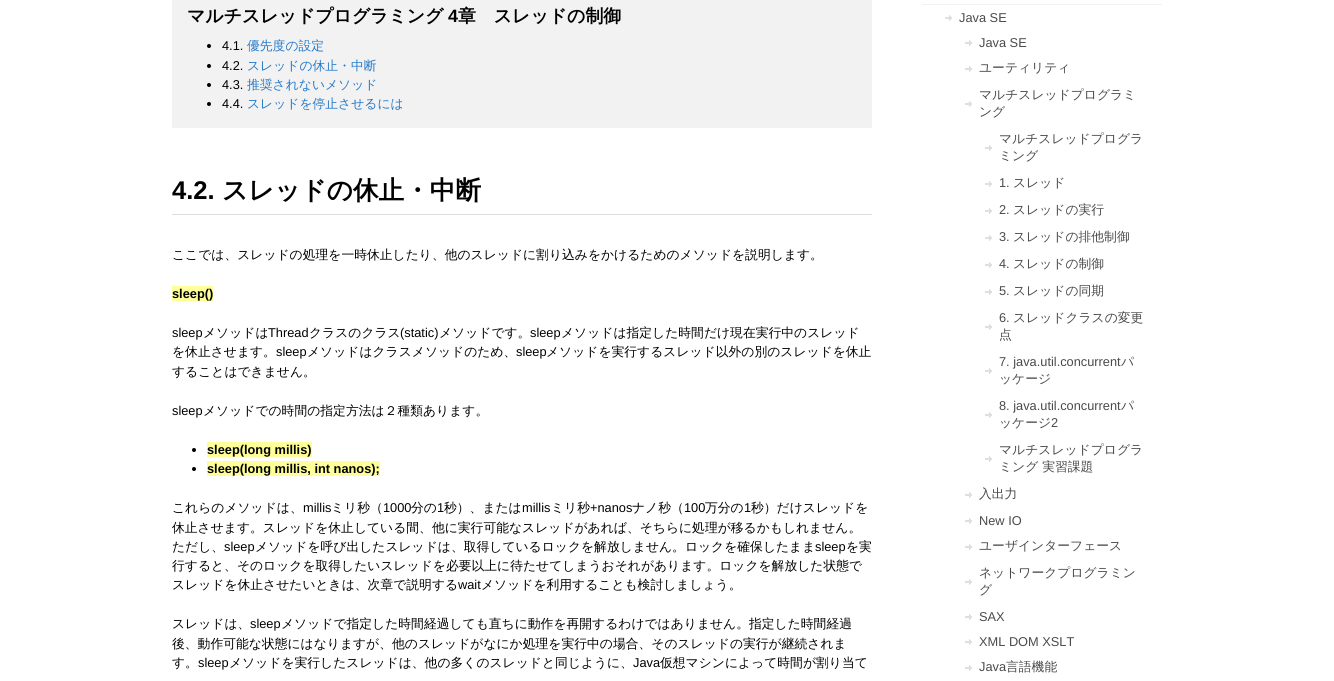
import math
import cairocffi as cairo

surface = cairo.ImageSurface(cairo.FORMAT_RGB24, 1334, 681)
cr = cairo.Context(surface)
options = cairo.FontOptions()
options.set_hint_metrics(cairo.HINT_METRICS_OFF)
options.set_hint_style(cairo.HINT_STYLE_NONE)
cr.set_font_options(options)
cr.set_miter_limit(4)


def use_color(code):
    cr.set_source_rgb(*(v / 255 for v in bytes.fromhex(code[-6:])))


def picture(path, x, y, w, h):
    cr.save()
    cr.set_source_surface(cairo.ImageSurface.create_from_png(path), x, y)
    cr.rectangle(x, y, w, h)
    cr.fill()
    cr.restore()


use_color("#ffffff")
cr.paint()
use_color("#f2f2f2")
cr.rectangle(172, 0, 700, 128)
cr.fill()
cr.select_font_face("WenQuanYi Zen Hei", cairo.FONT_SLANT_NORMAL, cairo.FONT_WEIGHT_BOLD)
cr.set_font_size(17.9)
use_color("#000000")
cr.move_to(187, 22)
cr.show_text("マルチスレッドプログラミング")
cr.select_font_face("Liberation Sans", cairo.FONT_SLANT_NORMAL, cairo.FONT_WEIGHT_BOLD)
cr.move_to(448, 22)
cr.show_text("4")
cr.select_font_face("WenQuanYi Zen Hei", cairo.FONT_SLANT_NORMAL, cairo.FONT_WEIGHT_BOLD)
cr.move_to(458, 22)
cr.show_text("章　スレッドの制御")
cr.new_path()
cr.arc(209, 46, 2, 0, 2 * math.pi)
cr.fill()
cr.select_font_face("Liberation Sans")
cr.set_font_size(12.8)
cr.move_to(222, 50)
cr.show_text("4.1.")
cr.select_font_face("WenQuanYi Zen Hei Medium")
use_color("#257ac9")
cr.move_to(247, 50)
cr.show_text("優先度の設定")
use_color("#000000")
cr.new_path()
cr.arc(209, 66, 2, 0, 2 * math.pi)
cr.fill()
cr.select_font_face("Liberation Sans")
cr.move_to(222, 70)
cr.show_text("4.2.")
cr.select_font_face("WenQuanYi Zen Hei Medium")
use_color("#257ac9")
cr.move_to(247, 70)
cr.show_text("スレッドの休止・中断")
use_color("#000000")
cr.new_path()
cr.arc(209, 85, 2, 0, 2 * math.pi)
cr.fill()
cr.select_font_face("Liberation Sans")
cr.move_to(222, 89)
cr.show_text("4.3.")
cr.select_font_face("WenQuanYi Zen Hei Medium")
use_color("#257ac9")
cr.move_to(247, 89)
cr.show_text("推奨されないメソッド")
use_color("#000000")
cr.new_path()
cr.arc(209, 104, 2, 0, 2 * math.pi)
cr.fill()
cr.select_font_face("Liberation Sans")
cr.move_to(222, 108)
cr.show_text("4.4.")
cr.select_font_face("WenQuanYi Zen Hei Medium")
use_color("#257ac9")
cr.move_to(247, 108)
cr.show_text("スレッドを停止させるには")
use_color("#dddddd")
cr.rectangle(172, 214, 700, 1)
cr.fill()
cr.select_font_face("Liberation Sans", cairo.FONT_SLANT_NORMAL, cairo.FONT_WEIGHT_BOLD)
cr.set_font_size(25.6)
use_color("#000000")
cr.move_to(172, 199)
cr.show_text("4.2.")
cr.select_font_face("WenQuanYi Zen Hei", cairo.FONT_SLANT_NORMAL, cairo.FONT_WEIGHT_BOLD)
cr.move_to(222, 199)
cr.show_text("スレッドの休止・中断")
cr.select_font_face("WenQuanYi Zen Hei Medium")
cr.set_font_size(12.8)
cr.move_to(172, 259)
cr.show_text("ここでは、スレッドの処理を一時休止したり、他のスレッドに割り込みをかけるためのメソッドを説明します。")
use_color("#ffff99")
cr.rectangle(172, 286, 41, 15)
cr.fill()
cr.select_font_face("Liberation Sans", cairo.FONT_SLANT_NORMAL, cairo.FONT_WEIGHT_BOLD)
use_color("#000000")
cr.move_to(172, 298)
cr.show_text("sleep()")
cr.select_font_face("Liberation Sans")
cr.move_to(172, 337)
cr.show_text("sleep")
cr.select_font_face("WenQuanYi Zen Hei Medium")
cr.move_to(203, 337)
cr.show_text("メソッドは")
cr.select_font_face("Liberation Sans")
cr.move_to(268, 337)
cr.show_text("Thread")
cr.select_font_face("WenQuanYi Zen Hei Medium")
cr.move_to(309, 337)
cr.show_text("クラスのクラス")
cr.select_font_face("Liberation Sans")
cr.move_to(400, 337)
cr.show_text("(static)")
cr.select_font_face("WenQuanYi Zen Hei Medium")
cr.move_to(439, 337)
cr.show_text("メソッドです。")
cr.select_font_face("Liberation Sans")
cr.move_to(530, 337)
cr.show_text("sleep")
cr.select_font_face("WenQuanYi Zen Hei Medium")
cr.move_to(561, 337)
cr.show_text("メソッドは指定した時間だけ現在実行中のスレッド")
cr.move_to(172, 356)
cr.show_text("を休止させます。")
cr.select_font_face("Liberation Sans")
cr.move_to(276, 356)
cr.show_text("sleep")
cr.select_font_face("WenQuanYi Zen Hei Medium")
cr.move_to(307, 356)
cr.show_text("メソッドはクラスメソッドのため、")
cr.select_font_face("Liberation Sans")
cr.move_to(516, 356)
cr.show_text("sleep")
cr.select_font_face("WenQuanYi Zen Hei Medium")
cr.move_to(546, 356)
cr.show_text("メソッドを実行するスレッド以外の別のスレッドを休止")
cr.move_to(172, 376)
cr.show_text("することはできません。")
cr.select_font_face("Liberation Sans")
cr.move_to(172, 415)
cr.show_text("sleep")
cr.select_font_face("WenQuanYi Zen Hei Medium")
cr.move_to(203, 415)
cr.show_text("メソッドでの時間の指定方法は２種類あります。")
cr.new_path()
cr.arc(194, 450, 2, 0, 2 * math.pi)
cr.fill()
use_color("#ffff99")
cr.rectangle(207, 442, 105, 15)
cr.fill()
cr.select_font_face("Liberation Sans", cairo.FONT_SLANT_NORMAL, cairo.FONT_WEIGHT_BOLD)
use_color("#000000")
cr.move_to(207, 454)
cr.show_text("sleep(long millis)")
cr.new_path()
cr.arc(194, 469, 2, 0, 2 * math.pi)
cr.fill()
use_color("#ffff99")
cr.rectangle(207, 461, 173, 15)
cr.fill()
use_color("#000000")
cr.move_to(207, 473)
cr.show_text("sleep(long millis, int nanos);")
cr.select_font_face("WenQuanYi Zen Hei Medium")
cr.move_to(172, 512)
cr.show_text("これらのメソッドは、")
cr.select_font_face("Liberation Sans")
cr.move_to(303, 512)
cr.show_text("millis")
cr.select_font_face("WenQuanYi Zen Hei Medium")
cr.move_to(331, 512)
cr.show_text("ミリ秒（")
cr.select_font_face("Liberation Sans")
cr.move_to(383, 512)
cr.show_text("1000")
cr.select_font_face("WenQuanYi Zen Hei Medium")
cr.move_to(411, 512)
cr.show_text("分の")
cr.select_font_face("Liberation Sans")
cr.move_to(437, 512)
cr.show_text("1")
cr.select_font_face("WenQuanYi Zen Hei Medium")
cr.move_to(444, 512)
cr.show_text("秒）、または")
cr.select_font_face("Liberation Sans")
cr.move_to(522, 512)
cr.show_text("millis")
cr.select_font_face("WenQuanYi Zen Hei Medium")
cr.move_to(551, 512)
cr.show_text("ミリ秒")
cr.select_font_face("Liberation Sans")
cr.move_to(590, 512)
cr.show_text("+nanos")
cr.select_font_face("WenQuanYi Zen Hei Medium")
cr.move_to(632, 512)
cr.show_text("ナノ秒（")
cr.select_font_face("Liberation Sans")
cr.move_to(684, 512)
cr.show_text("100")
cr.select_font_face("WenQuanYi Zen Hei Medium")
cr.move_to(705, 512)
cr.show_text("万分の")
cr.select_font_face("Liberation Sans")
cr.move_to(744, 512)
cr.show_text("1")
cr.select_font_face("WenQuanYi Zen Hei Medium")
cr.move_to(751, 512)
cr.show_text("秒）だけスレッドを")
cr.move_to(172, 532)
cr.show_text("休止させます。スレッドを休止している間、他に実行可能なスレッドがあれば、そちらに処理が移るかもしれません。")
cr.move_to(172, 551)
cr.show_text("ただし、")
cr.select_font_face("Liberation Sans")
cr.move_to(224, 551)
cr.show_text("sleep")
cr.select_font_face("WenQuanYi Zen Hei Medium")
cr.move_to(255, 551)
cr.show_text("メソッドを呼び出したスレッドは、取得しているロックを解放しません。ロックを確保したまま")
cr.select_font_face("Liberation Sans")
cr.move_to(815, 551)
cr.show_text("sleep")
cr.select_font_face("WenQuanYi Zen Hei Medium")
cr.move_to(846, 551)
cr.show_text("を実")
cr.move_to(172, 570)
cr.show_text("行すると、そのロックを取得したいスレッドを必要以上に待たせてしまうおそれがあります。ロックを解放した状態で")
cr.move_to(172, 589)
cr.show_text("スレッドを休止させたいときは、次章で説明する")
cr.select_font_face("Liberation Sans")
cr.move_to(458, 589)
cr.show_text("wait")
cr.select_font_face("WenQuanYi Zen Hei Medium")
cr.move_to(481, 589)
cr.show_text("メソッドを利用することも検討しましょう。")
cr.move_to(172, 628)
cr.show_text("スレッドは、")
cr.select_font_face("Liberation Sans")
cr.move_to(250, 628)
cr.show_text("sleep")
cr.select_font_face("WenQuanYi Zen Hei Medium")
cr.move_to(281, 628)
cr.show_text("メソッドで指定した時間経過しても直ちに動作を再開するわけではありません。指定した時間経過")
cr.move_to(172, 648)
cr.show_text("後、動作可能な状態にはなりますが、他のスレッドがなにか処理を実行中の場合、そのスレッドの実行が継続されま")
cr.move_to(172, 667)
cr.show_text("す。")
cr.select_font_face("Liberation Sans")
cr.move_to(198, 667)
cr.show_text("sleep")
cr.select_font_face("WenQuanYi Zen Hei Medium")
cr.move_to(229, 667)
cr.show_text("メソッドを実行したスレッドは、他の多くのスレッドと同じように、")
cr.select_font_face("Liberation Sans")
cr.move_to(633, 667)
cr.show_text("Java")
cr.select_font_face("WenQuanYi Zen Hei Medium")
cr.move_to(660, 667)
cr.show_text("仮想マシンによって時間が割り当て")
use_color("#f2f2f2")
cr.rectangle(922, 4, 240, 1)
cr.fill()
picture("img1.png", 945, 15, 7, 6)
cr.select_font_face("Liberation Sans")
use_color("#4a4a4a")
cr.move_to(959, 22)
cr.show_text("Java SE")
picture("img1.png", 965, 40, 7, 6)
cr.move_to(979, 47)
cr.show_text("Java SE")
picture("img1.png", 965, 66, 7, 6)
cr.select_font_face("WenQuanYi Zen Hei Medium")
cr.move_to(979, 72)
cr.show_text("ユーティリティ")
picture("img1.png", 965, 101, 7, 6)
cr.move_to(979, 99)
cr.show_text("マルチスレッドプログラミ")
cr.move_to(979, 116)
cr.show_text("ング")
picture("img1.png", 985, 145, 7, 6)
cr.move_to(999, 143)
cr.show_text("マルチスレッドプログラ")
cr.move_to(999, 160)
cr.show_text("ミング")
picture("img1.png", 985, 181, 7, 6)
cr.select_font_face("Liberation Sans")
cr.move_to(999, 187)
cr.show_text("1.")
cr.select_font_face("WenQuanYi Zen Hei Medium")
cr.move_to(1013, 187)
cr.show_text("スレッド")
picture("img1.png", 985, 208, 7, 6)
cr.select_font_face("Liberation Sans")
cr.move_to(999, 214)
cr.show_text("2.")
cr.select_font_face("WenQuanYi Zen Hei Medium")
cr.move_to(1013, 214)
cr.show_text("スレッドの実行")
picture("img1.png", 985, 235, 7, 6)
cr.select_font_face("Liberation Sans")
cr.move_to(999, 241)
cr.show_text("3.")
cr.select_font_face("WenQuanYi Zen Hei Medium")
cr.move_to(1013, 241)
cr.show_text("スレッドの排他制御")
picture("img1.png", 985, 262, 7, 6)
cr.select_font_face("Liberation Sans")
cr.move_to(999, 268)
cr.show_text("4.")
cr.select_font_face("WenQuanYi Zen Hei Medium")
cr.move_to(1013, 268)
cr.show_text("スレッドの制御")
picture("img1.png", 985, 289, 7, 6)
cr.select_font_face("Liberation Sans")
cr.move_to(999, 295)
cr.show_text("5.")
cr.select_font_face("WenQuanYi Zen Hei Medium")
cr.move_to(1013, 295)
cr.show_text("スレッドの同期")
picture("img1.png", 985, 324, 7, 6)
cr.select_font_face("Liberation Sans")
cr.move_to(999, 322)
cr.show_text("6.")
cr.select_font_face("WenQuanYi Zen Hei Medium")
cr.move_to(1013, 322)
cr.show_text("スレッドクラスの変更")
cr.move_to(999, 339)
cr.show_text("点")
picture("img1.png", 985, 368, 7, 6)
cr.select_font_face("Liberation Sans")
cr.move_to(999, 366)
cr.show_text("7. java.util.concurrent")
cr.select_font_face("WenQuanYi Zen Hei Medium")
cr.move_to(1121, 366)
cr.show_text("パ")
cr.move_to(999, 383)
cr.show_text("ッケージ")
picture("img1.png", 985, 412, 7, 6)
cr.select_font_face("Liberation Sans")
cr.move_to(999, 410)
cr.show_text("8. java.util.concurrent")
cr.select_font_face("WenQuanYi Zen Hei Medium")
cr.move_to(1121, 410)
cr.show_text("パ")
cr.move_to(999, 427)
cr.show_text("ッケージ")
cr.select_font_face("Liberation Sans")
cr.move_to(1051, 427)
cr.show_text("2")
picture("img1.png", 985, 456, 7, 6)
cr.select_font_face("WenQuanYi Zen Hei Medium")
cr.move_to(999, 454)
cr.show_text("マルチスレッドプログラ")
cr.move_to(999, 471)
cr.show_text("ミング 実習課題")
picture("img1.png", 965, 492, 7, 6)
cr.move_to(979, 498)
cr.show_text("入出力")
picture("img1.png", 965, 518, 7, 6)
cr.select_font_face("Liberation Sans")
cr.move_to(979, 525)
cr.show_text("New IO")
picture("img1.png", 965, 544, 7, 6)
cr.select_font_face("WenQuanYi Zen Hei Medium")
cr.move_to(979, 550)
cr.show_text("ユーザインターフェース")
picture("img1.png", 965, 579, 7, 6)
cr.move_to(979, 577)
cr.show_text("ネットワークプログラミン")
cr.move_to(979, 594)
cr.show_text("グ")
picture("img1.png", 965, 614, 7, 6)
cr.select_font_face("Liberation Sans")
cr.move_to(979, 621)
cr.show_text("SAX")
picture("img1.png", 965, 639, 7, 6)
cr.move_to(979, 646)
cr.show_text("XML DOM XSLT")
picture("img1.png", 965, 665, 7, 6)
cr.move_to(979, 671)
cr.show_text("Java")
cr.select_font_face("WenQuanYi Zen Hei Medium")
cr.move_to(1006, 671)
cr.show_text("言語機能")
surface.write_to_png("result.png")
